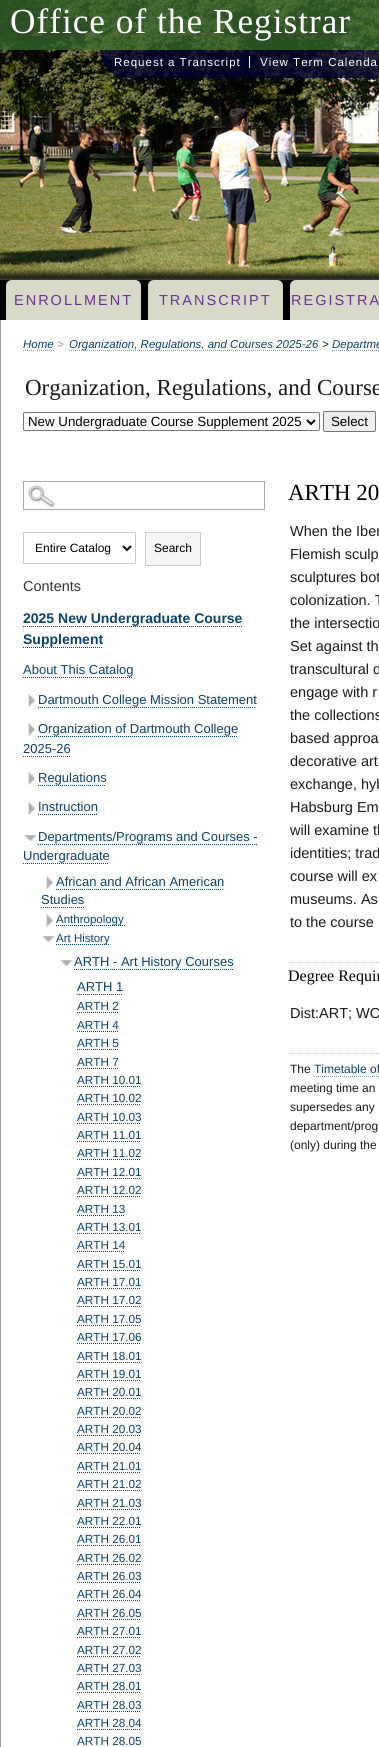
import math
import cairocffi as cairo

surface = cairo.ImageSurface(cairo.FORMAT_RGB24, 379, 1747)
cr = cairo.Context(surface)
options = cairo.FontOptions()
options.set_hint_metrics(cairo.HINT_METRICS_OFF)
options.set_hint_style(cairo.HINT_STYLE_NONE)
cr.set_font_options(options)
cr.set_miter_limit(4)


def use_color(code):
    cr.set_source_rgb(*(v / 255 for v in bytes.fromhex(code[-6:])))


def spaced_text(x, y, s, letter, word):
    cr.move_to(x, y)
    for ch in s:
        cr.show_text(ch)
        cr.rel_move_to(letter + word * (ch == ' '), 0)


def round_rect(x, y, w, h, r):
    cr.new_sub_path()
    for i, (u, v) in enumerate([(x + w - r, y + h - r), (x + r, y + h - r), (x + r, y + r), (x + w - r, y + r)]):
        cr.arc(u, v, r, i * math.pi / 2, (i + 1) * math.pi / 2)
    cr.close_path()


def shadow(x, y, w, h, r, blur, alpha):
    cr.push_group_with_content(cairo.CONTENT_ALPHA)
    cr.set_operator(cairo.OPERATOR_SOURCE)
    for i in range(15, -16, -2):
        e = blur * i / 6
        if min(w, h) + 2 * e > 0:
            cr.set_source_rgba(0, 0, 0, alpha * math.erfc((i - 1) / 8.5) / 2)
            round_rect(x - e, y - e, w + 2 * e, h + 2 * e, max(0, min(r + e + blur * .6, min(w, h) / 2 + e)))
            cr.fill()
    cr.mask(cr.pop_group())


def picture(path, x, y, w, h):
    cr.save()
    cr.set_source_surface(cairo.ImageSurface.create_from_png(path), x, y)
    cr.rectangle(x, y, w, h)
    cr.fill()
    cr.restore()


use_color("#ffffff")
cr.paint()
picture("img1.png", 0, 0, 379, 280)
cr.set_source_rgba(0.22, 0.404, 0.184, 0.75)
cr.rectangle(0, 0, 379, 50)
cr.fill()
cr.select_font_face("Liberation Serif")
cr.set_font_size(35.25)
use_color("#ffffff")
spaced_text(10, 33, "Office of the Registrar", 1, 0)
cr.set_source_rgba(0, 0, 0.2, 0.75)
cr.new_path()
cr.move_to(100, 50)
cr.line_to(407, 50)
cr.line_to(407, 78)
cr.line_to(128, 78)
cr.curve_to(112.5, 78, 100, 65.5, 100, 50)
cr.close_path()
cr.fill()
cr.select_font_face("Liberation Sans")
cr.set_font_size(11.5)
use_color("#ffffff")
spaced_text(114, 66, "Request a Transcript", 1, 0)
spaced_text(260, 66, "View Term Calenda", 1, 0)
cr.rectangle(249, 56, 1, 12)
cr.fill()
use_color("#888888")
shadow(0, 280, 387, 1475, 0, 2.5, 1)
use_color("#000000")
cr.rectangle(0, 280, 296, 40)
cr.fill()
use_color("#d8d9c7")
cr.new_path()
cr.move_to(12, 280)
cr.line_to(135, 280)
cr.curve_to(138.5, 280, 141, 282.5, 141, 286)
cr.line_to(141, 320)
cr.line_to(6, 320)
cr.line_to(6, 286)
cr.curve_to(6, 282.5, 8.5, 280, 12, 280)
cr.close_path()
cr.fill()
cr.set_font_size(14.5)
use_color("#663399")
spaced_text(14, 305, "ENROLLMENT", 2, 0)
use_color("#d8d9c7")
cr.new_path()
cr.move_to(154, 280)
cr.line_to(277, 280)
cr.curve_to(280.5, 280, 283, 282.5, 283, 286)
cr.line_to(283, 320)
cr.line_to(148, 320)
cr.line_to(148, 286)
cr.curve_to(148, 282.5, 150.5, 280, 154, 280)
cr.close_path()
cr.fill()
use_color("#663399")
spaced_text(159, 305, "TRANSCRIPT", 2, 0)
use_color("#d8d9c7")
cr.new_path()
cr.move_to(296, 280)
cr.line_to(379, 280)
cr.curve_to(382.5, 280, 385, 282.5, 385, 286)
cr.line_to(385, 320)
cr.line_to(290, 320)
cr.line_to(290, 286)
cr.curve_to(290, 282.5, 292.5, 280, 296, 280)
cr.close_path()
cr.fill()
use_color("#663399")
spaced_text(291, 305, "REGISTRA", 2, 0)
use_color("#ffffff")
cr.rectangle(1, 320, 378, 1427)
cr.fill()
use_color("#a3a19e")
cr.rectangle(0, 320, 1, 1427)
cr.fill()
cr.select_font_face("Liberation Sans", cairo.FONT_SLANT_ITALIC)
cr.set_font_size(11.5)
use_color("#0a416b")
cr.move_to(23, 348)
cr.show_text("Home")
cr.new_path()
cr.move_to(23, 350.5)
cr.line_to(54, 350.5)
use_color("#84a0b5")
cr.set_line_width(1)
cr.set_dash([1, 1])
cr.stroke()
use_color("#909090")
cr.move_to(57, 348)
cr.show_text(">")
cr.new_path()
cr.move_to(69, 350.5)
cr.line_to(319, 350.5)
use_color("#84a0b5")
cr.stroke()
use_color("#0a416b")
cr.move_to(69, 348)
cr.show_text("Organization, Regulations, and Courses 2025-26")
use_color("#1a1a1a")
cr.move_to(322, 348)
cr.show_text(">")
cr.new_path()
cr.move_to(332, 350.5)
cr.line_to(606, 350.5)
use_color("#84a0b5")
cr.stroke()
use_color("#0a416b")
cr.move_to(332, 348)
cr.show_text("Departme")
cr.select_font_face("Liberation Serif")
cr.set_font_size(23)
use_color("#1a1a1a")
cr.move_to(25, 395)
cr.show_text("Organization, Regulations, and Course")
round_rect(23.5, 412.5, 296, 18, 1.5)
use_color("#767676")
cr.set_dash([])
cr.stroke()
cr.new_path()
cr.move_to(307, 420)
cr.line_to(311, 424)
cr.line_to(315, 420)
use_color("#000000")
cr.set_line_width(2)
cr.stroke()
cr.select_font_face("Liberation Sans")
cr.set_font_size(13.3)
cr.move_to(28, 426)
cr.show_text("New Undergraduate Course Supplement 2025")
use_color("#efefef")
round_rect(323.5, 411.5, 52, 20, 1.5)
cr.fill_preserve()
use_color("#767676")
cr.set_line_width(1)
cr.stroke()
use_color("#000000")
cr.move_to(331, 426)
cr.show_text("Select")
picture("img2.png", 28, 485, 27, 23)
cr.rectangle(23.5, 481.5, 241, 28)
use_color("#a9a9a9")
cr.stroke()
cr.rectangle(23.5, 532.5, 112, 31)
use_color("#cccccc")
cr.stroke()
cr.new_path()
cr.move_to(123, 546)
cr.line_to(127, 550)
cr.line_to(131, 546)
use_color("#000000")
cr.set_line_width(2)
cr.stroke()
cr.set_font_size(12)
cr.move_to(35, 552)
cr.show_text("Entire Catalog")
use_color("#f5f5f5")
cr.rectangle(145.5, 532.5, 55, 33)
cr.fill_preserve()
use_color("#cccccc")
cr.set_line_width(1)
cr.stroke()
use_color("#000000")
cr.move_to(154, 552)
cr.show_text("Search")
cr.set_font_size(14.5)
use_color("#333333")
cr.move_to(23, 591)
cr.show_text("Contents")
cr.select_font_face("Liberation Sans", cairo.FONT_SLANT_NORMAL, cairo.FONT_WEIGHT_BOLD)
cr.set_font_size(14)
use_color("#0a416b")
cr.move_to(23, 623)
cr.show_text("2025 New Undergraduate Course")
cr.new_path()
cr.move_to(23, 626.5)
cr.line_to(242, 626.5)
cr.set_dash([1, 1])
cr.stroke()
cr.move_to(23, 644)
cr.show_text("Supplement")
cr.new_path()
cr.move_to(23, 647.5)
cr.line_to(103, 647.5)
cr.stroke()
cr.select_font_face("Liberation Sans")
cr.set_font_size(13)
cr.move_to(23, 674)
cr.show_text("About This Catalog")
cr.new_path()
cr.move_to(23, 677.5)
cr.line_to(133, 677.5)
cr.stroke()
picture("img3.png", 28, 693, 7, 14)
cr.move_to(38, 704)
cr.show_text("Dartmouth College Mission Statement")
cr.new_path()
cr.move_to(38, 707.5)
cr.line_to(256, 707.5)
cr.stroke()
picture("img3.png", 28, 722, 7, 14)
cr.move_to(38, 733)
cr.show_text("Organization of Dartmouth College")
cr.new_path()
cr.move_to(38, 736.5)
cr.line_to(237, 736.5)
cr.stroke()
cr.move_to(23, 753)
cr.show_text("2025-26")
cr.new_path()
cr.move_to(23, 756.5)
cr.line_to(71, 756.5)
cr.stroke()
picture("img3.png", 28, 771, 7, 14)
cr.move_to(38, 782)
cr.show_text("Regulations")
cr.new_path()
cr.move_to(38, 785.5)
cr.line_to(106, 785.5)
cr.stroke()
picture("img3.png", 28, 801, 7, 14)
cr.move_to(38, 811)
cr.show_text("Instruction")
cr.new_path()
cr.move_to(38, 814.5)
cr.line_to(98, 814.5)
cr.stroke()
picture("img4.png", 24, 835, 13, 6)
cr.move_to(38, 841)
cr.show_text("Departments/Programs and Courses -")
cr.new_path()
cr.move_to(38, 844.5)
cr.line_to(257, 844.5)
cr.stroke()
cr.move_to(23, 860)
cr.show_text("Undergraduate")
cr.new_path()
cr.move_to(23, 863.5)
cr.line_to(109, 863.5)
cr.stroke()
picture("img3.png", 46, 875, 7, 14)
cr.move_to(56, 886)
cr.show_text("African and African American")
cr.new_path()
cr.move_to(56, 889.5)
cr.line_to(224, 889.5)
cr.stroke()
cr.move_to(41, 904)
cr.show_text("Studies")
cr.new_path()
cr.move_to(41, 907.5)
cr.line_to(84, 907.5)
cr.stroke()
picture("img3.png", 46, 913, 7, 14)
cr.new_path()
cr.move_to(56, 925.5)
cr.line_to(125, 925.5)
cr.stroke()
cr.set_font_size(11.5)
cr.move_to(56, 923)
cr.show_text("Anthropology")
picture("img4.png", 42, 936, 13, 6)
cr.new_path()
cr.move_to(56, 944.5)
cr.line_to(110, 944.5)
cr.stroke()
cr.move_to(56, 942)
cr.show_text("Art History")
picture("img4.png", 60, 960, 13, 6)
cr.set_font_size(13)
cr.move_to(74, 966)
cr.show_text("ARTH - Art History Courses")
cr.new_path()
cr.move_to(74, 969.5)
cr.line_to(234, 969.5)
cr.stroke()
cr.move_to(77, 991)
cr.show_text("ARTH 1")
cr.new_path()
cr.move_to(77, 994.5)
cr.line_to(123, 994.5)
cr.stroke()
cr.set_font_size(11.75)
cr.move_to(77, 1010)
cr.show_text("ARTH 2")
cr.new_path()
cr.move_to(77, 1012.5)
cr.line_to(119, 1012.5)
cr.stroke()
cr.move_to(77, 1029)
cr.show_text("ARTH 4")
cr.new_path()
cr.move_to(77, 1031.5)
cr.line_to(119, 1031.5)
cr.stroke()
cr.move_to(77, 1047)
cr.show_text("ARTH 5")
cr.new_path()
cr.move_to(77, 1049.5)
cr.line_to(119, 1049.5)
cr.stroke()
cr.move_to(77, 1066)
cr.show_text("ARTH 7")
cr.new_path()
cr.move_to(77, 1068.5)
cr.line_to(119, 1068.5)
cr.stroke()
cr.move_to(77, 1084)
cr.show_text("ARTH 10.01")
cr.new_path()
cr.move_to(77, 1086.5)
cr.line_to(141, 1086.5)
cr.stroke()
cr.move_to(77, 1102)
cr.show_text("ARTH 10.02")
cr.new_path()
cr.move_to(77, 1104.5)
cr.line_to(141, 1104.5)
cr.stroke()
cr.move_to(77, 1121)
cr.show_text("ARTH 10.03")
cr.new_path()
cr.move_to(77, 1123.5)
cr.line_to(141, 1123.5)
cr.stroke()
cr.move_to(77, 1139)
cr.show_text("ARTH 11.01")
cr.new_path()
cr.move_to(77, 1141.5)
cr.line_to(141, 1141.5)
cr.stroke()
cr.move_to(77, 1157)
cr.show_text("ARTH 11.02")
cr.new_path()
cr.move_to(77, 1159.5)
cr.line_to(141, 1159.5)
cr.stroke()
cr.move_to(77, 1176)
cr.show_text("ARTH 12.01")
cr.new_path()
cr.move_to(77, 1178.5)
cr.line_to(141, 1178.5)
cr.stroke()
cr.move_to(77, 1194)
cr.show_text("ARTH 12.02")
cr.new_path()
cr.move_to(77, 1196.5)
cr.line_to(141, 1196.5)
cr.stroke()
cr.move_to(77, 1213)
cr.show_text("ARTH 13")
cr.new_path()
cr.move_to(77, 1215.5)
cr.line_to(125, 1215.5)
cr.stroke()
cr.move_to(77, 1231)
cr.show_text("ARTH 13.01")
cr.new_path()
cr.move_to(77, 1233.5)
cr.line_to(141, 1233.5)
cr.stroke()
cr.move_to(77, 1249)
cr.show_text("ARTH 14")
cr.new_path()
cr.move_to(77, 1251.5)
cr.line_to(125, 1251.5)
cr.stroke()
cr.move_to(77, 1268)
cr.show_text("ARTH 15.01")
cr.new_path()
cr.move_to(77, 1270.5)
cr.line_to(141, 1270.5)
cr.stroke()
cr.move_to(77, 1286)
cr.show_text("ARTH 17.01")
cr.new_path()
cr.move_to(77, 1288.5)
cr.line_to(141, 1288.5)
cr.stroke()
cr.move_to(77, 1304)
cr.show_text("ARTH 17.02")
cr.new_path()
cr.move_to(77, 1306.5)
cr.line_to(141, 1306.5)
cr.stroke()
cr.move_to(77, 1323)
cr.show_text("ARTH 17.05")
cr.new_path()
cr.move_to(77, 1325.5)
cr.line_to(141, 1325.5)
cr.stroke()
cr.move_to(77, 1341)
cr.show_text("ARTH 17.06")
cr.new_path()
cr.move_to(77, 1343.5)
cr.line_to(141, 1343.5)
cr.stroke()
cr.move_to(77, 1360)
cr.show_text("ARTH 18.01")
cr.new_path()
cr.move_to(77, 1362.5)
cr.line_to(141, 1362.5)
cr.stroke()
cr.move_to(77, 1378)
cr.show_text("ARTH 19.01")
cr.new_path()
cr.move_to(77, 1380.5)
cr.line_to(141, 1380.5)
cr.stroke()
cr.move_to(77, 1396)
cr.show_text("ARTH 20.01")
cr.new_path()
cr.move_to(77, 1398.5)
cr.line_to(141, 1398.5)
cr.stroke()
cr.move_to(77, 1415)
cr.show_text("ARTH 20.02")
cr.new_path()
cr.move_to(77, 1417.5)
cr.line_to(141, 1417.5)
cr.stroke()
cr.move_to(77, 1433)
cr.show_text("ARTH 20.03")
cr.new_path()
cr.move_to(77, 1435.5)
cr.line_to(141, 1435.5)
cr.stroke()
cr.move_to(77, 1451)
cr.show_text("ARTH 20.04")
cr.new_path()
cr.move_to(77, 1453.5)
cr.line_to(141, 1453.5)
cr.stroke()
cr.move_to(77, 1470)
cr.show_text("ARTH 21.01")
cr.new_path()
cr.move_to(77, 1472.5)
cr.line_to(141, 1472.5)
cr.stroke()
cr.move_to(77, 1488)
cr.show_text("ARTH 21.02")
cr.new_path()
cr.move_to(77, 1490.5)
cr.line_to(141, 1490.5)
cr.stroke()
cr.move_to(77, 1507)
cr.show_text("ARTH 21.03")
cr.new_path()
cr.move_to(77, 1509.5)
cr.line_to(141, 1509.5)
cr.stroke()
cr.move_to(77, 1525)
cr.show_text("ARTH 22.01")
cr.new_path()
cr.move_to(77, 1527.5)
cr.line_to(141, 1527.5)
cr.stroke()
cr.move_to(77, 1543)
cr.show_text("ARTH 26.01")
cr.new_path()
cr.move_to(77, 1545.5)
cr.line_to(141, 1545.5)
cr.stroke()
cr.move_to(77, 1562)
cr.show_text("ARTH 26.02")
cr.new_path()
cr.move_to(77, 1564.5)
cr.line_to(141, 1564.5)
cr.stroke()
cr.move_to(77, 1580)
cr.show_text("ARTH 26.03")
cr.new_path()
cr.move_to(77, 1582.5)
cr.line_to(141, 1582.5)
cr.stroke()
cr.move_to(77, 1598)
cr.show_text("ARTH 26.04")
cr.new_path()
cr.move_to(77, 1600.5)
cr.line_to(141, 1600.5)
cr.stroke()
cr.move_to(77, 1617)
cr.show_text("ARTH 26.05")
cr.new_path()
cr.move_to(77, 1619.5)
cr.line_to(141, 1619.5)
cr.stroke()
cr.move_to(77, 1635)
cr.show_text("ARTH 27.01")
cr.new_path()
cr.move_to(77, 1637.5)
cr.line_to(141, 1637.5)
cr.stroke()
cr.move_to(77, 1654)
cr.show_text("ARTH 27.02")
cr.new_path()
cr.move_to(77, 1656.5)
cr.line_to(141, 1656.5)
cr.stroke()
cr.move_to(77, 1672)
cr.show_text("ARTH 27.03")
cr.new_path()
cr.move_to(77, 1674.5)
cr.line_to(141, 1674.5)
cr.stroke()
cr.move_to(77, 1690)
cr.show_text("ARTH 28.01")
cr.new_path()
cr.move_to(77, 1692.5)
cr.line_to(141, 1692.5)
cr.stroke()
cr.move_to(77, 1709)
cr.show_text("ARTH 28.03")
cr.new_path()
cr.move_to(77, 1711.5)
cr.line_to(141, 1711.5)
cr.stroke()
cr.move_to(77, 1727)
cr.show_text("ARTH 28.04")
cr.new_path()
cr.move_to(77, 1729.5)
cr.line_to(141, 1729.5)
cr.stroke()
cr.move_to(77, 1745)
cr.show_text("ARTH 28.05")
cr.select_font_face("Liberation Serif")
cr.set_font_size(23)
use_color("#000000")
cr.move_to(288, 500)
cr.show_text("ARTH 20")
cr.select_font_face("Liberation Sans")
cr.set_font_size(14.5)
use_color("#1a1a1a")
cr.move_to(290, 536)
cr.show_text("When the Iber")
cr.move_to(290, 559)
cr.show_text("Flemish sculp")
cr.move_to(290, 582)
cr.show_text("sculptures bot")
cr.move_to(290, 605)
cr.show_text("colonization. T")
cr.move_to(290, 628)
cr.show_text("the intersectio")
cr.move_to(290, 651)
cr.show_text("Set against th")
cr.move_to(290, 674)
cr.show_text("transcultural d")
cr.move_to(290, 697)
cr.show_text("engage with r")
cr.move_to(290, 720)
cr.show_text("the collections")
cr.move_to(290, 743)
cr.show_text("based approa")
cr.move_to(290, 766)
cr.show_text("decorative art")
cr.move_to(290, 789)
cr.show_text("exchange, hyb")
cr.move_to(290, 812)
cr.show_text("Habsburg Em")
cr.move_to(290, 835)
cr.show_text("will examine th")
cr.move_to(290, 858)
cr.show_text("identities; trad")
cr.move_to(290, 881)
cr.show_text("course will ex")
cr.move_to(290, 904)
cr.show_text("museums. As")
cr.move_to(290, 927)
cr.show_text("to the course")
cr.new_path()
cr.move_to(288, 962.5)
cr.line_to(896, 962.5)
use_color("#bfbfbf")
cr.stroke()
cr.select_font_face("Liberation Serif")
cr.set_font_size(16)
use_color("#000000")
cr.move_to(288, 981)
cr.show_text("Degree Requir")
cr.select_font_face("Liberation Sans")
cr.set_font_size(14.5)
use_color("#1a1a1a")
cr.move_to(290, 1018)
cr.show_text("Dist:ART; WC")
cr.new_path()
cr.move_to(288, 1053.5)
cr.line_to(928, 1053.5)
use_color("#bfbfbf")
cr.stroke()
cr.set_font_size(12)
use_color("#1a1a1a")
cr.move_to(290, 1073)
cr.show_text("The")
use_color("#0a416b")
cr.move_to(314, 1073)
cr.show_text("Timetable of")
cr.new_path()
cr.move_to(314, 1076.5)
cr.line_to(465, 1076.5)
use_color("#84a0b5")
cr.stroke()
use_color("#1a1a1a")
cr.move_to(290, 1092)
cr.show_text("meeting time an")
cr.move_to(290, 1111)
cr.show_text("supersedes any")
cr.move_to(290, 1130)
cr.show_text("department/prog")
cr.move_to(290, 1149)
cr.show_text("(only) during the")
surface.write_to_png("result.png")
